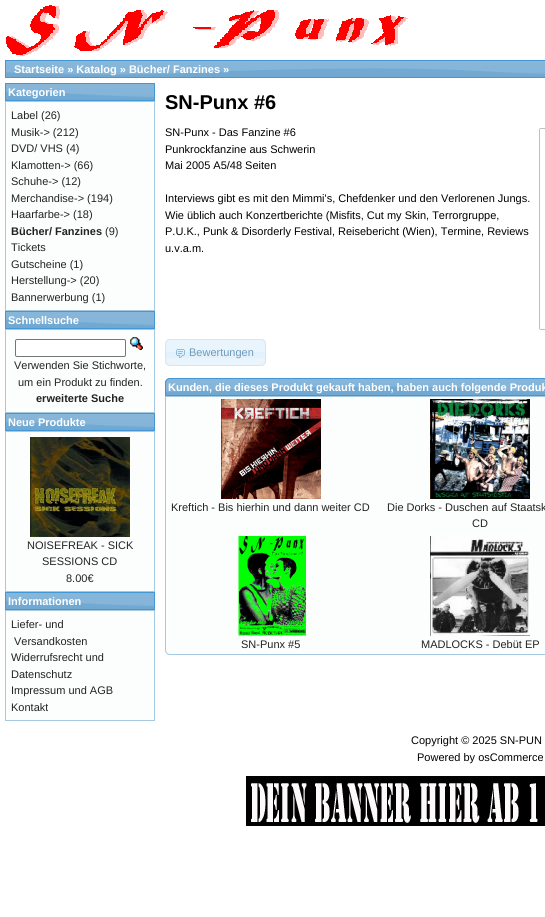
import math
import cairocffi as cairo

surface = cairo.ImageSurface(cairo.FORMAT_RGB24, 545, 917)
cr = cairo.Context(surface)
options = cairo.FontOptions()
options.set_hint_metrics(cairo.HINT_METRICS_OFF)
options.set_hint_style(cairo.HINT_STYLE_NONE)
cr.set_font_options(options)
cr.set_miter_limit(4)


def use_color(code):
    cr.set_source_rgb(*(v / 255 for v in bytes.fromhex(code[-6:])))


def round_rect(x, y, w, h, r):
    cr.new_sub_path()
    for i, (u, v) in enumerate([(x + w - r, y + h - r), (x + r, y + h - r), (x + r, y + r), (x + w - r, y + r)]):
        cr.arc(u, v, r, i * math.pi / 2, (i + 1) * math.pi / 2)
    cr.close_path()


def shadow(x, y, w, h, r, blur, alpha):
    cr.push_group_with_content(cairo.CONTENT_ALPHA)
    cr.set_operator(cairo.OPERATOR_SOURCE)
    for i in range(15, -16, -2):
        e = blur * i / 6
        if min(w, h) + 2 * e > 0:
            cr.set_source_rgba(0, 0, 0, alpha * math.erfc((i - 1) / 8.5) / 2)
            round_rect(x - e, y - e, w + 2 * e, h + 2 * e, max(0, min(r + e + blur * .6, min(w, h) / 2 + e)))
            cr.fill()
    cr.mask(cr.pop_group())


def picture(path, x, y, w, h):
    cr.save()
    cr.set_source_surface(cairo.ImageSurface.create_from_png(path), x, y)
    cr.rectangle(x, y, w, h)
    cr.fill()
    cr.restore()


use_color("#ffffff")
cr.paint()
picture("img1.png", 6, 5, 402, 51)
picture("img2.png", 6, 61, 539, 16)
cr.rectangle(5.5, 60.5, 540, 17)
use_color("#4297d7")
cr.set_line_width(1)
cr.stroke()
cr.select_font_face("Liberation Sans", cairo.FONT_SLANT_NORMAL, cairo.FONT_WEIGHT_BOLD)
cr.set_font_size(11)
use_color("#ffffff")
cr.move_to(14, 73)
cr.show_text("Startseite » Katalog » Bücher/ Fanzines »")
picture("img3.png", 6, 84, 148, 16)
cr.rectangle(5.5, 83.5, 149, 17)
use_color("#4297d7")
cr.stroke()
use_color("#ffffff")
cr.move_to(8, 96)
cr.show_text("Kategorien")
use_color("#fcfdfd")
cr.rectangle(5.5, 101.5, 149, 209)
cr.fill_preserve()
use_color("#a6c9e2")
cr.stroke()
cr.select_font_face("Liberation Sans")
use_color("#222222")
cr.move_to(11, 119)
cr.show_text("Label (26)")
cr.move_to(11, 136)
cr.show_text("Musik-> (212)")
cr.move_to(11, 152)
cr.show_text("DVD/ VHS (4)")
cr.move_to(11, 169)
cr.show_text("Klamotten-> (66)")
cr.move_to(11, 185)
cr.show_text("Schuhe-> (12)")
cr.move_to(11, 202)
cr.show_text("Merchandise-> (194)")
cr.move_to(11, 218)
cr.show_text("Haarfarbe-> (18)")
cr.select_font_face("Liberation Sans", cairo.FONT_SLANT_NORMAL, cairo.FONT_WEIGHT_BOLD)
cr.move_to(11, 235)
cr.show_text("Bücher/ Fanzines")
cr.select_font_face("Liberation Sans")
cr.move_to(105, 235)
cr.show_text("(9)")
cr.move_to(11, 251)
cr.show_text("Tickets")
cr.move_to(11, 268)
cr.show_text("Gutscheine (1)")
cr.move_to(11, 284)
cr.show_text("Herstellung-> (20)")
cr.move_to(11, 301)
cr.show_text("Bannerwerbung (1)")
picture("img3.png", 6, 312, 148, 16)
cr.rectangle(5.5, 311.5, 149, 17)
use_color("#4297d7")
cr.stroke()
cr.select_font_face("Liberation Sans", cairo.FONT_SLANT_NORMAL, cairo.FONT_WEIGHT_BOLD)
use_color("#ffffff")
cr.move_to(8, 324)
cr.show_text("Schnellsuche")
use_color("#fcfdfd")
cr.rectangle(5.5, 329.5, 149, 83)
cr.fill_preserve()
use_color("#a6c9e2")
cr.stroke()
use_color("#ffffff")
round_rect(15.5, 339.5, 110, 17, 1.5)
cr.fill_preserve()
use_color("#767676")
cr.stroke()
picture("img4.png", 130, 337, 13, 13)
cr.select_font_face("Liberation Sans")
use_color("#222222")
cr.move_to(14, 369)
cr.show_text("Verwenden Sie Stichworte,")
cr.move_to(18, 386)
cr.show_text("um ein Produkt zu finden.")
cr.select_font_face("Liberation Sans", cairo.FONT_SLANT_NORMAL, cairo.FONT_WEIGHT_BOLD)
cr.move_to(36, 402)
cr.show_text("erweiterte Suche")
picture("img3.png", 6, 414, 148, 16)
cr.rectangle(5.5, 413.5, 149, 17)
use_color("#4297d7")
cr.stroke()
use_color("#ffffff")
cr.move_to(8, 426)
cr.show_text("Neue Produkte")
use_color("#fcfdfd")
cr.rectangle(5.5, 431.5, 149, 160)
cr.fill_preserve()
use_color("#a6c9e2")
cr.stroke()
picture("img5.png", 30, 437, 100, 100)
cr.select_font_face("Liberation Sans")
use_color("#222222")
cr.move_to(27, 549)
cr.show_text("NOISEFREAK - SICK")
cr.move_to(42, 565)
cr.show_text("SESSIONS CD")
cr.move_to(66, 582)
cr.show_text("8.00€")
picture("img3.png", 6, 593, 148, 16)
cr.rectangle(5.5, 592.5, 149, 17)
use_color("#4297d7")
cr.stroke()
cr.select_font_face("Liberation Sans", cairo.FONT_SLANT_NORMAL, cairo.FONT_WEIGHT_BOLD)
use_color("#ffffff")
cr.move_to(8, 605)
cr.show_text("Informationen")
use_color("#fcfdfd")
cr.rectangle(5.5, 610.5, 149, 110)
cr.fill_preserve()
use_color("#a6c9e2")
cr.stroke()
cr.select_font_face("Liberation Sans")
use_color("#222222")
cr.move_to(11, 628)
cr.show_text("Liefer- und")
cr.move_to(14, 645)
cr.show_text("Versandkosten")
cr.move_to(11, 661)
cr.show_text("Widerrufsrecht und")
cr.move_to(11, 678)
cr.show_text("Datenschutz")
cr.move_to(11, 694)
cr.show_text("Impressum und AGB")
cr.move_to(11, 711)
cr.show_text("Kontakt")
cr.select_font_face("Liberation Sans", cairo.FONT_SLANT_NORMAL, cairo.FONT_WEIGHT_BOLD)
cr.set_font_size(20)
use_color("#000000")
cr.move_to(165, 109)
cr.show_text("SN-Punx #6")
cr.select_font_face("Liberation Sans")
cr.set_font_size(11)
cr.move_to(165, 136)
cr.show_text("SN-Punx - Das Fanzine #6")
cr.save()
cr.set_fill_rule(cairo.FILL_RULE_EVEN_ODD)
cr.new_path()
cr.move_to(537, 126)
cr.line_to(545, 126)
cr.line_to(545, 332)
cr.line_to(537, 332)
cr.close_path()
cr.move_to(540, 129)
cr.line_to(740, 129)
cr.line_to(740, 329)
cr.line_to(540, 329)
cr.close_path()
cr.clip()
use_color("#000000")
shadow(540, 129, 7, 200, 0, 0.5, 1)
cr.restore()
cr.move_to(165, 153)
cr.show_text("Punkrockfanzine aus Schwerin")
cr.move_to(165, 169)
cr.show_text("Mai 2005 A5/48 Seiten")
cr.move_to(165, 202)
cr.show_text("Interviews gibt es mit den Mimmi's, Chefdenker und den Verlorenen Jungs.")
cr.move_to(165, 219)
cr.show_text("Wie üblich auch Konzertberichte (Misfits, Cut my Skin, Terrorgruppe,")
cr.move_to(165, 235)
cr.show_text("P.U.K., Punk & Disorderly Festival, Reisebericht (Wien), Termine, Reviews")
cr.move_to(165, 252)
cr.show_text("u.v.a.m.")
use_color("#e9f4fd")
round_rect(165, 339, 101, 27, 5)
cr.fill()
use_color("#e2f1fc")
cr.rectangle(165, 352, 101, 6)
cr.fill()
round_rect(165.5, 339.5, 100, 26, 4.5)
use_color("#d6e6f2")
cr.stroke()
picture("img6.png", 176, 349, 9, 9)
use_color("#6d9abb")
cr.move_to(189, 356)
cr.show_text("Bewertungen")
picture("img7.png", 165, 378, 380, 17)
cr.new_path()
cr.move_to(170, 378.5)
cr.line_to(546, 378.5)
cr.curve_to(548.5, 378.5, 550.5, 380.5, 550.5, 383)
cr.line_to(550.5, 395.5)
cr.line_to(165.5, 395.5)
cr.line_to(165.5, 383)
cr.curve_to(165.5, 380.5, 167.5, 378.5, 170, 378.5)
cr.close_path()
use_color("#4297d7")
cr.stroke()
cr.select_font_face("Liberation Sans", cairo.FONT_SLANT_NORMAL, cairo.FONT_WEIGHT_BOLD)
use_color("#ffffff")
cr.move_to(168, 391)
cr.show_text("Kunden, die dieses Produkt gekauft haben, haben auch folgende Produk")
use_color("#fcfdfd")
cr.new_path()
cr.move_to(165.5, 396.5)
cr.line_to(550.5, 396.5)
cr.line_to(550.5, 650)
cr.curve_to(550.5, 652.5, 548.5, 654.5, 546, 654.5)
cr.line_to(170, 654.5)
cr.curve_to(167.5, 654.5, 165.5, 652.5, 165.5, 650)
cr.close_path()
cr.fill_preserve()
use_color("#a6c9e2")
cr.stroke()
picture("img8.png", 221, 399, 100, 100)
cr.select_font_face("Liberation Sans")
use_color("#222222")
cr.move_to(171, 511)
cr.show_text("Kreftich - Bis hierhin und dann weiter CD")
picture("img9.png", 430, 399, 100, 100)
cr.move_to(387, 511)
cr.show_text("Die Dorks - Duschen auf Staatsk")
cr.move_to(472, 527)
cr.show_text("CD")
picture("img10.png", 238, 536, 68, 100)
cr.move_to(241, 648)
cr.show_text("SN-Punx #5")
picture("img11.png", 430, 536, 100, 100)
cr.move_to(421, 648)
cr.show_text("MADLOCKS - Debüt EP")
use_color("#000000")
cr.move_to(411, 744)
cr.show_text("Copyright © 2025 SN-PUN")
cr.move_to(417, 761)
cr.show_text("Powered by osCommerce")
picture("img12.png", 246, 776, 299, 50)
surface.write_to_png("result.png")
